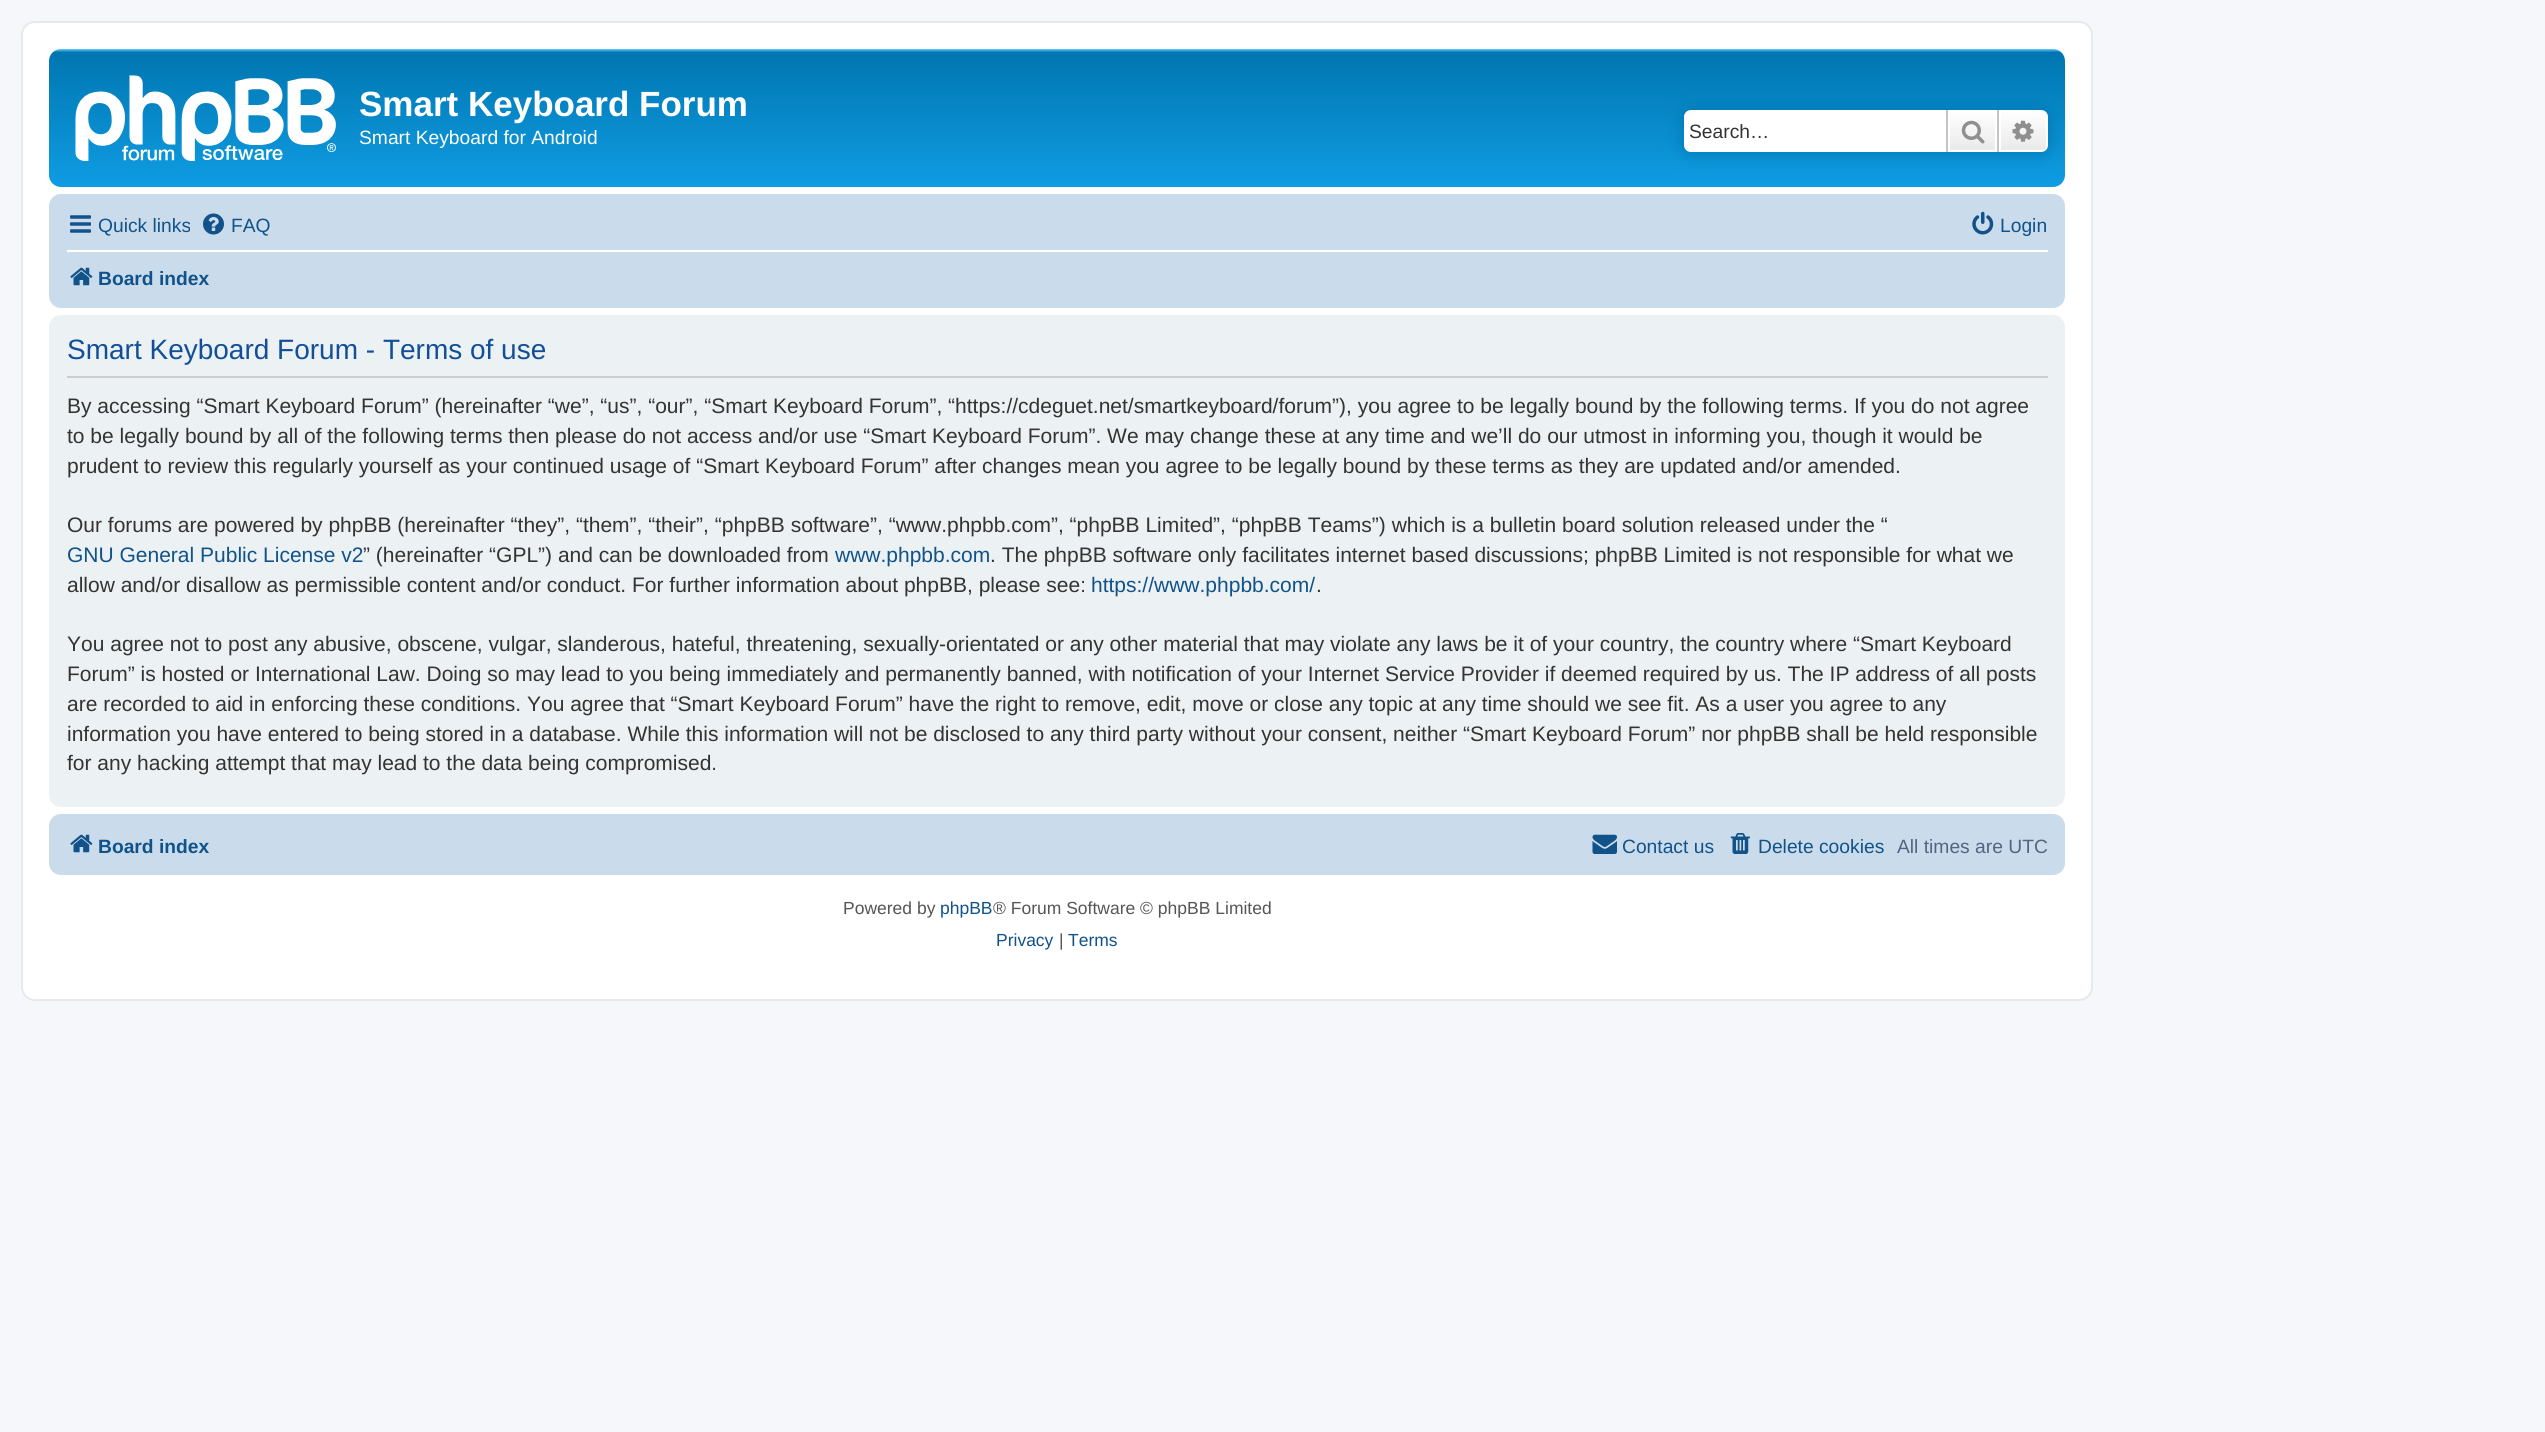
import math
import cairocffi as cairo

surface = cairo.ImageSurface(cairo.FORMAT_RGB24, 2545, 1432)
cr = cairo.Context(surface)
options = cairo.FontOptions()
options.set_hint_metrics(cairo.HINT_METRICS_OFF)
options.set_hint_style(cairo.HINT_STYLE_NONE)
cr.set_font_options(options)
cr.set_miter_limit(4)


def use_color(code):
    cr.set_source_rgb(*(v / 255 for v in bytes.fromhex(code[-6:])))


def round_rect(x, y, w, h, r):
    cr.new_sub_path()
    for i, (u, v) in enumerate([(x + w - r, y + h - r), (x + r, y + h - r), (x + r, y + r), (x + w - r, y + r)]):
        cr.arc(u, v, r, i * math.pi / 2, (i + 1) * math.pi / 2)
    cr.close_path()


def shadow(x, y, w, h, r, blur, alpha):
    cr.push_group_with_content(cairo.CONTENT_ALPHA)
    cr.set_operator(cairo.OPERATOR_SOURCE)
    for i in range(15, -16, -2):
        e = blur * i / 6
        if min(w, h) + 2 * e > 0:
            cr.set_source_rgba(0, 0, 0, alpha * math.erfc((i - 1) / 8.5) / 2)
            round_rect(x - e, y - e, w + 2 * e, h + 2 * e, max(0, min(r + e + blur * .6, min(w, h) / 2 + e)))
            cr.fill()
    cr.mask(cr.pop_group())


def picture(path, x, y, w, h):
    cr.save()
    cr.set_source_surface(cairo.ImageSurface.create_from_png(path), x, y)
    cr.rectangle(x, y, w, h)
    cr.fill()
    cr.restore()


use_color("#f5f7fa")
cr.paint()
use_color("#ffffff")
round_rect(22, 22, 2070, 978, 13)
cr.fill_preserve()
use_color("#e6e9ed")
cr.stroke()
gradient = cairo.LinearGradient(1057, 49, 1057, 210)
gradient.add_color_stop_rgba(0, 0.416, 0.808, 1, 1)
gradient.add_color_stop_rgba(0.02, 0, 0.463, 0.694, 1)
gradient.add_color_stop_rgba(1, 0.071, 0.639, 0.922, 1)
cr.set_source(gradient)
round_rect(49, 49, 2016, 138, 12)
cr.fill()
picture("img1.png", 75, 75, 261, 86)
cr.select_font_face("Liberation Sans", cairo.FONT_SLANT_NORMAL, cairo.FONT_WEIGHT_BOLD)
cr.set_font_size(35)
use_color("#ffffff")
cr.move_to(359, 116)
cr.show_text("Smart Keyboard Forum")
cr.select_font_face("Liberation Sans")
cr.set_font_size(19.25)
cr.move_to(359, 144)
cr.show_text("Smart Keyboard for Android")
use_color("#0075b0")
shadow(1684, 110, 364, 42, 7, 9, 1)
use_color("#ffffff")
cr.new_path()
cr.move_to(1691, 110)
cr.line_to(1946, 110)
cr.line_to(1946, 152)
cr.line_to(1691, 152)
cr.curve_to(1687, 152, 1684, 149, 1684, 145)
cr.line_to(1684, 117)
cr.curve_to(1684, 113, 1687, 110, 1691, 110)
cr.close_path()
cr.fill()
use_color("#333333")
cr.move_to(1689, 138)
cr.show_text("Search…")
gradient = cairo.LinearGradient(1972, 110, 1972, 152)
gradient.add_color_stop_rgba(0, 1, 1, 1, 1)
gradient.add_color_stop_rgba(1, 0.914, 0.914, 0.914, 1)
cr.set_source(gradient)
cr.rectangle(1950, 112, 45, 38)
cr.fill()
cr.rectangle(1949, 111, 47, 40)
use_color("#ffffff")
cr.stroke()
use_color("#c7c3bf")
cr.rectangle(1997, 110, 2, 42)
cr.fill()
cr.rectangle(1946, 110, 2, 42)
cr.fill()
picture("img2.png", 1961, 120, 24, 24)
gradient = cairo.LinearGradient(2023, 110, 2023, 152)
gradient.add_color_stop_rgba(0, 1, 1, 1, 1)
gradient.add_color_stop_rgba(1, 0.914, 0.914, 0.914, 1)
cr.set_source(gradient)
cr.new_path()
cr.move_to(2000, 111)
cr.line_to(2041, 111)
cr.curve_to(2044.5, 111, 2047, 113.5, 2047, 117)
cr.line_to(2047, 145)
cr.curve_to(2047, 148.5, 2044.5, 151, 2041, 151)
cr.line_to(2000, 151)
cr.close_path()
cr.fill_preserve()
use_color("#ffffff")
cr.stroke()
picture("img3.png", 2012, 120, 22, 22)
use_color("#cadceb")
round_rect(49, 194, 2016, 114, 12)
cr.fill()
picture("img4.png", 70, 215, 21, 18)
use_color("#105289")
cr.move_to(98, 232)
cr.show_text("Quick links")
picture("img5.png", 203, 213, 21, 22)
cr.move_to(231, 232)
cr.show_text("FAQ")
picture("img6.png", 1972, 211, 22, 24)
cr.move_to(2000, 232)
cr.show_text("Login")
use_color("#ffffff")
cr.rectangle(67, 250, 1981, 2)
cr.fill()
picture("img7.png", 70, 267, 23, 19)
cr.select_font_face("Liberation Sans", cairo.FONT_SLANT_NORMAL, cairo.FONT_WEIGHT_BOLD)
use_color("#105289")
cr.move_to(98, 285)
cr.show_text("Board index")
use_color("#ecf1f3")
round_rect(49, 315, 2016, 492, 12)
cr.fill()
use_color("#cccccc")
cr.rectangle(67, 376, 1981, 2)
cr.fill()
cr.select_font_face("Liberation Sans")
cr.set_font_size(28)
use_color("#115098")
cr.move_to(67, 359)
cr.show_text("Smart Keyboard Forum - Terms of use")
cr.set_font_size(21)
use_color("#333333")
cr.move_to(67, 413)
cr.show_text("By accessing “Smart Keyboard Forum” (hereinafter “we”, “us”, “our”, “Smart Keyboard Forum”, “https://cdeguet.net/smartkeyboard/forum”), you agree to be legally bound by the following terms. If you do not agree")
cr.move_to(67, 443)
cr.show_text("to be legally bound by all of the following terms then please do not access and/or use “Smart Keyboard Forum”. We may change these at any time and we’ll do our utmost in informing you, though it would be")
cr.move_to(67, 473)
cr.show_text("prudent to review this regularly yourself as your continued usage of “Smart Keyboard Forum” after changes mean you agree to be legally bound by these terms as they are updated and/or amended.")
cr.move_to(67, 532)
cr.show_text("Our forums are powered by phpBB (hereinafter “they”, “them”, “their”, “phpBB software”, “www.phpbb.com”, “phpBB Limited”, “phpBB Teams”) which is a bulletin board solution released under the “")
use_color("#105289")
cr.move_to(67, 562)
cr.show_text("GNU General Public License v2")
use_color("#333333")
cr.move_to(363, 562)
cr.show_text("” (hereinafter “GPL”) and can be downloaded from")
use_color("#105289")
cr.move_to(835, 562)
cr.show_text("www.phpbb.com")
use_color("#333333")
cr.move_to(990, 562)
cr.show_text(". The phpBB software only facilitates internet based discussions; phpBB Limited is not responsible for what we")
cr.move_to(67, 592)
cr.show_text("allow and/or disallow as permissible content and/or conduct. For further information about phpBB, please see:")
use_color("#105289")
cr.move_to(1091, 592)
cr.show_text("https://www.phpbb.com/")
use_color("#333333")
cr.move_to(1316, 592)
cr.show_text(".")
cr.move_to(67, 651)
cr.show_text("You agree not to post any abusive, obscene, vulgar, slanderous, hateful, threatening, sexually-orientated or any other material that may violate any laws be it of your country, the country where “Smart Keyboard")
cr.move_to(67, 681)
cr.show_text("Forum” is hosted or International Law. Doing so may lead to you being immediately and permanently banned, with notification of your Internet Service Provider if deemed required by us. The IP address of all posts")
cr.move_to(67, 711)
cr.show_text("are recorded to aid in enforcing these conditions. You agree that “Smart Keyboard Forum” have the right to remove, edit, move or close any topic at any time should we see fit. As a user you agree to any")
cr.move_to(67, 741)
cr.show_text("information you have entered to being stored in a database. While this information will not be disclosed to any third party without your consent, neither “Smart Keyboard Forum” nor phpBB shall be held responsible")
cr.move_to(67, 770)
cr.show_text("for any hacking attempt that may lead to the data being compromised.")
use_color("#cadceb")
round_rect(49, 814, 2016, 61, 12)
cr.fill()
picture("img7.png", 70, 834, 23, 19)
cr.select_font_face("Liberation Sans", cairo.FONT_SLANT_NORMAL, cairo.FONT_WEIGHT_BOLD)
cr.set_font_size(19.25)
use_color("#105289")
cr.move_to(98, 853)
cr.show_text("Board index")
picture("img8.png", 1592, 834, 25, 20)
cr.select_font_face("Liberation Sans")
cr.move_to(1622, 853)
cr.show_text("Contact us")
picture("img9.png", 1730, 833, 20, 21)
cr.move_to(1758, 853)
cr.show_text("Delete cookies")
use_color("#536482")
cr.move_to(1897, 853)
cr.show_text("All times are UTC")
cr.set_font_size(17.5)
use_color("#555555")
cr.move_to(843, 914)
cr.show_text("Powered by")
use_color("#105289")
cr.move_to(940, 914)
cr.show_text("phpBB")
use_color("#555555")
cr.move_to(993, 914)
cr.show_text("® Forum Software © phpBB Limited")
use_color("#105289")
cr.move_to(996, 946)
cr.show_text("Privacy")
use_color("#555555")
cr.move_to(1059, 946)
cr.show_text("|")
use_color("#105289")
cr.move_to(1068, 946)
cr.show_text("Terms")
surface.write_to_png("result.png")
